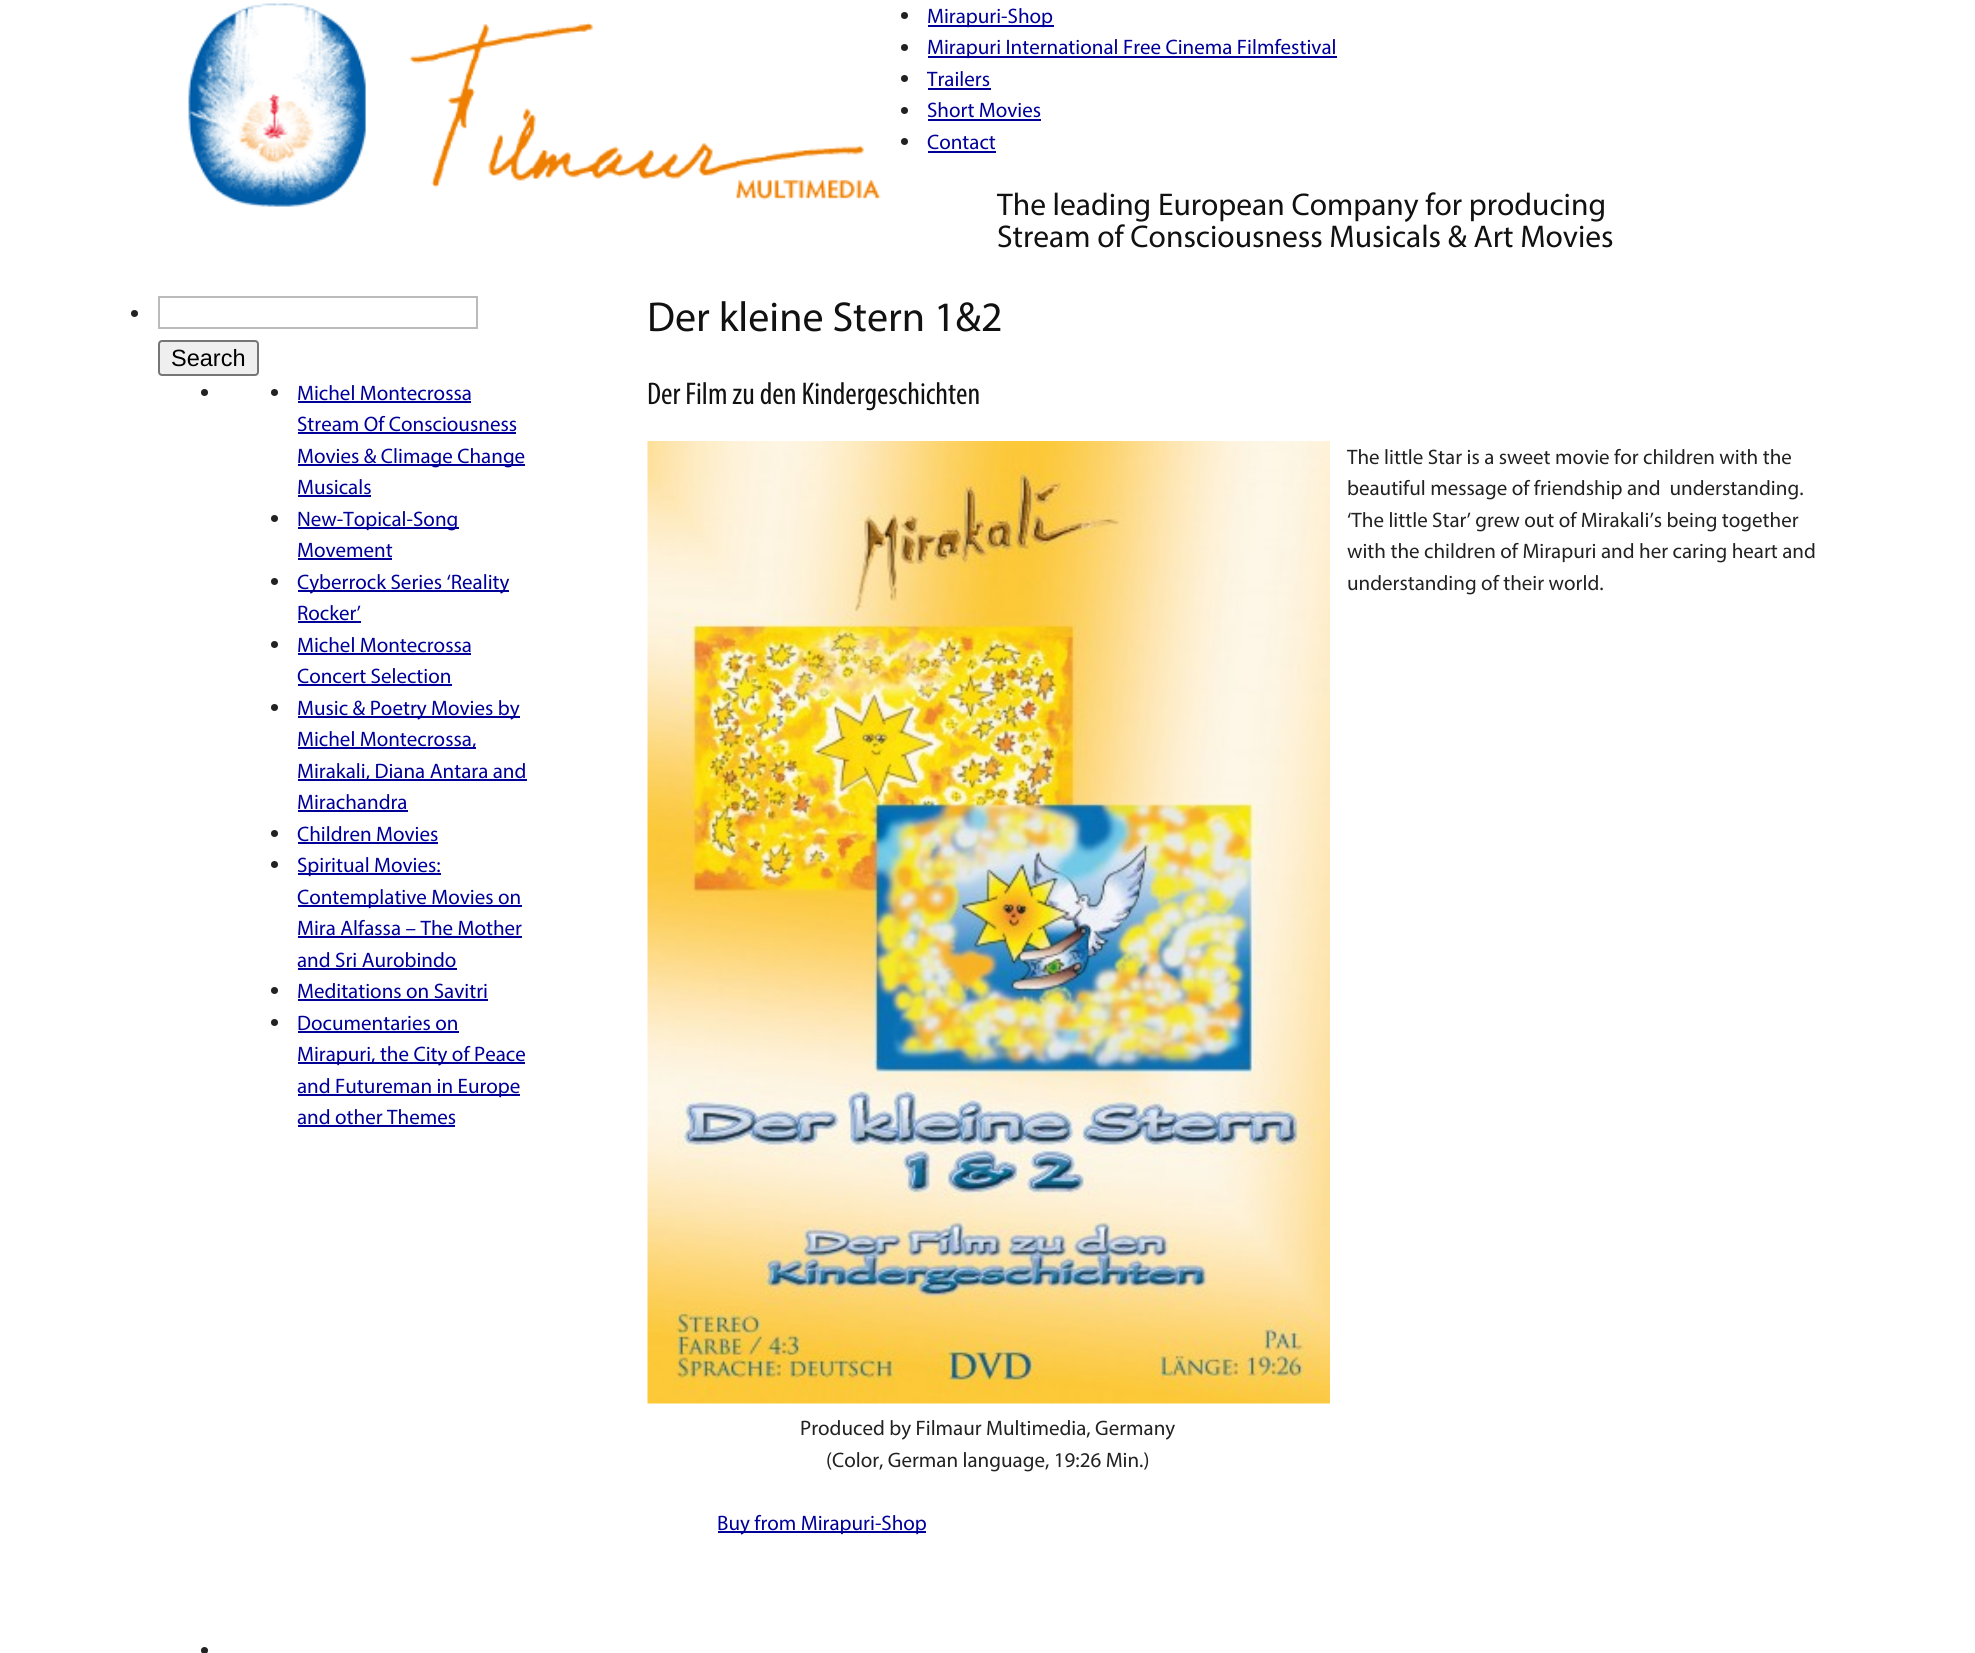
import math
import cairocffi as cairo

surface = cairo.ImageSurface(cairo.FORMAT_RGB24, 1975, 1653)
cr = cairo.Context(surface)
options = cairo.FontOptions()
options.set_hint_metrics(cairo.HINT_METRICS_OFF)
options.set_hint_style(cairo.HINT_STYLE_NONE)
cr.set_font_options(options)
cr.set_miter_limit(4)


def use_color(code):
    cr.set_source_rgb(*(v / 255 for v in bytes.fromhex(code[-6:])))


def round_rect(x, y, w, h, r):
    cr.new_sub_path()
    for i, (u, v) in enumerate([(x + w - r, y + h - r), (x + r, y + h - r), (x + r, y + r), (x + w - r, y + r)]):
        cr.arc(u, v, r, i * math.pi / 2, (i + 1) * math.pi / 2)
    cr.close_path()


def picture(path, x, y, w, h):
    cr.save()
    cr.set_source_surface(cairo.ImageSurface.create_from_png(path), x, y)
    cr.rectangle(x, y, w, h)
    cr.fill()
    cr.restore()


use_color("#ffffff")
cr.paint()
picture("img1.png", 188, 3, 693, 204)
use_color("#222222")
cr.arc(904.5, 15.5, 3.5, 0, 2 * math.pi)
cr.fill()
use_color("#000099")
cr.rectangle(928, 25, 126, 2)
cr.fill()
cr.select_font_face("Myriad")
cr.set_font_size(21)
cr.move_to(927, 23)
cr.show_text("Mirapuri-Shop")
use_color("#222222")
cr.new_path()
cr.arc(904.5, 47.5, 3.5, 0, 2 * math.pi)
cr.fill()
use_color("#000099")
cr.rectangle(928, 56, 409, 2)
cr.fill()
cr.move_to(927, 54)
cr.show_text("Mirapuri International Free Cinema Filmfestival")
use_color("#222222")
cr.new_path()
cr.arc(904.5, 78.5, 3.5, 0, 2 * math.pi)
cr.fill()
use_color("#000099")
cr.move_to(927, 86)
cr.show_text("Trailers")
cr.rectangle(928, 88, 63, 2)
cr.fill()
use_color("#222222")
cr.arc(904.5, 110.5, 3.5, 0, 2 * math.pi)
cr.fill()
use_color("#000099")
cr.move_to(927, 117)
cr.show_text("Short Movies")
cr.rectangle(928, 119, 113, 2)
cr.fill()
use_color("#222222")
cr.arc(904.5, 141.5, 3.5, 0, 2 * math.pi)
cr.fill()
use_color("#000099")
cr.move_to(927, 149)
cr.show_text("Contact")
cr.rectangle(928, 151, 68, 2)
cr.fill()
cr.set_font_size(31.5)
use_color("#111111")
cr.move_to(997, 215)
cr.show_text("The leading European Company for producing")
cr.move_to(997, 247)
cr.show_text("Stream of Consciousness Musicals & Art Movies")
use_color("#222222")
cr.new_path()
cr.arc(134.5, 313.5, 3.5, 0, 2 * math.pi)
cr.fill()
cr.rectangle(159, 297, 318, 31)
use_color("#bbbbbb")
cr.stroke()
use_color("#efefef")
round_rect(159, 341, 99, 34, 3)
cr.fill_preserve()
use_color("#767676")
cr.stroke()
cr.select_font_face("Liberation Sans")
cr.set_font_size(23.5)
use_color("#000000")
cr.move_to(171, 366)
cr.show_text("Search")
use_color("#222222")
cr.new_path()
cr.arc(204.5, 392.5, 3.5, 0, 2 * math.pi)
cr.fill()
cr.arc(274.5, 392.5, 3.5, 0, 2 * math.pi)
cr.fill()
cr.select_font_face("Myriad")
cr.set_font_size(21)
use_color("#000099")
cr.move_to(297, 400)
cr.show_text("Michel Montecrossa")
cr.rectangle(298, 401, 173, 2)
cr.fill()
cr.move_to(297, 431)
cr.show_text("Stream Of Consciousness")
cr.rectangle(298, 432, 218, 2)
cr.fill()
cr.rectangle(298, 464, 227, 2)
cr.fill()
cr.move_to(297, 463)
cr.show_text("Movies & Climage Change")
cr.move_to(297, 494)
cr.show_text("Musicals")
cr.rectangle(298, 495, 73, 2)
cr.fill()
use_color("#222222")
cr.arc(274.5, 518.5, 3.5, 0, 2 * math.pi)
cr.fill()
use_color("#000099")
cr.rectangle(298, 527, 161, 2)
cr.fill()
cr.move_to(297, 526)
cr.show_text("New-Topical-Song")
cr.move_to(297, 557)
cr.show_text("Movement")
cr.rectangle(298, 558, 94, 2)
cr.fill()
use_color("#222222")
cr.arc(274.5, 581.5, 3.5, 0, 2 * math.pi)
cr.fill()
use_color("#000099")
cr.rectangle(298, 590, 211, 2)
cr.fill()
cr.move_to(297, 589)
cr.show_text("Cyberrock Series ‘Reality")
cr.move_to(297, 620)
cr.show_text("Rocker’")
cr.rectangle(298, 621, 63, 2)
cr.fill()
use_color("#222222")
cr.arc(274.5, 644.5, 3.5, 0, 2 * math.pi)
cr.fill()
use_color("#000099")
cr.move_to(297, 652)
cr.show_text("Michel Montecrossa")
cr.rectangle(298, 653, 173, 2)
cr.fill()
cr.move_to(297, 683)
cr.show_text("Concert Selection")
cr.rectangle(298, 684, 154, 2)
cr.fill()
use_color("#222222")
cr.arc(274.5, 707.5, 3.5, 0, 2 * math.pi)
cr.fill()
use_color("#000099")
cr.rectangle(298, 716, 222, 2)
cr.fill()
cr.move_to(297, 715)
cr.show_text("Music & Poetry Movies by")
cr.rectangle(298, 747, 178, 2)
cr.fill()
cr.move_to(297, 746)
cr.show_text("Michel Montecrossa,")
cr.rectangle(298, 779, 229, 2)
cr.fill()
cr.move_to(297, 778)
cr.show_text("Mirakali, Diana Antara and")
cr.move_to(297, 809)
cr.show_text("Mirachandra")
cr.rectangle(298, 810, 110, 2)
cr.fill()
use_color("#222222")
cr.arc(274.5, 833.5, 3.5, 0, 2 * math.pi)
cr.fill()
use_color("#000099")
cr.move_to(297, 841)
cr.show_text("Children Movies")
cr.rectangle(298, 842, 140, 2)
cr.fill()
use_color("#222222")
cr.arc(274.5, 864.5, 3.5, 0, 2 * math.pi)
cr.fill()
use_color("#000099")
cr.rectangle(298, 873, 143, 2)
cr.fill()
cr.move_to(297, 872)
cr.show_text("Spiritual Movies:")
cr.rectangle(298, 905, 224, 2)
cr.fill()
cr.move_to(297, 904)
cr.show_text("Contemplative Movies on")
cr.move_to(297, 935)
cr.show_text("Mira Alfassa – The Mother")
cr.rectangle(298, 936, 224, 2)
cr.fill()
cr.move_to(297, 967)
cr.show_text("and Sri Aurobindo")
cr.rectangle(298, 968, 159, 2)
cr.fill()
use_color("#222222")
cr.arc(274.5, 990.5, 3.5, 0, 2 * math.pi)
cr.fill()
use_color("#000099")
cr.move_to(297, 998)
cr.show_text("Meditations on Savitri")
cr.rectangle(298, 999, 190, 2)
cr.fill()
use_color("#222222")
cr.arc(274.5, 1022.5, 3.5, 0, 2 * math.pi)
cr.fill()
use_color("#000099")
cr.move_to(297, 1030)
cr.show_text("Documentaries on")
cr.rectangle(298, 1031, 161, 2)
cr.fill()
cr.rectangle(298, 1062, 227, 2)
cr.fill()
cr.move_to(297, 1061)
cr.show_text("Mirapuri, the City of Peace")
cr.rectangle(298, 1094, 222, 2)
cr.fill()
cr.move_to(297, 1093)
cr.show_text("and Futureman in Europe")
cr.move_to(297, 1124)
cr.show_text("and other Themes")
cr.rectangle(298, 1125, 157, 2)
cr.fill()
cr.set_font_size(42)
use_color("#111111")
cr.move_to(647, 331)
cr.show_text("Der kleine Stern 1&2")
cr.select_font_face("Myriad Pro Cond")
cr.set_font_size(31.5)
cr.move_to(647, 404)
cr.show_text("Der Film zu den Kindergeschichten")
cr.select_font_face("Myriad")
cr.set_font_size(21)
use_color("#222222")
cr.move_to(1347, 464)
cr.show_text("The little Star is a sweet movie for children with the")
cr.move_to(1347, 495)
cr.show_text("beautiful message of friendship and  understanding.")
cr.move_to(1347, 527)
cr.show_text("‘The little Star’ grew out of Mirakali’s being together")
cr.move_to(1347, 558)
cr.show_text("with the children of Mirapuri and her caring heart and")
cr.move_to(1347, 590)
cr.show_text("understanding of their world.")
picture("img2.png", 647, 441, 683, 963)
cr.move_to(800, 1435)
cr.show_text("Produced by Filmaur Multimedia, Germany")
cr.move_to(826, 1467)
cr.show_text("(Color, German language, 19:26 Min.)")
use_color("#000099")
cr.rectangle(718, 1531, 208, 2)
cr.fill()
cr.move_to(717, 1530)
cr.show_text("Buy from Mirapuri-Shop")
use_color("#222222")
cr.new_path()
cr.arc(204.5, 1650.5, 3.5, 0, 2 * math.pi)
cr.fill()
surface.write_to_png("result.png")
